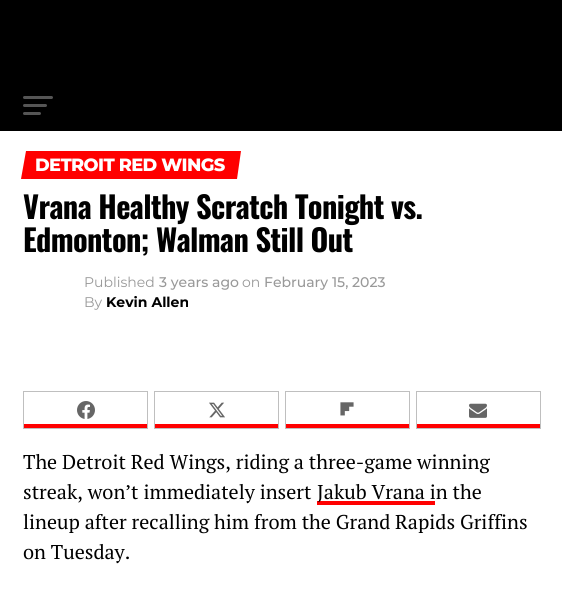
import math
import cairocffi as cairo

surface = cairo.ImageSurface(cairo.FORMAT_RGB24, 562, 600)
cr = cairo.Context(surface)
options = cairo.FontOptions()
options.set_hint_metrics(cairo.HINT_METRICS_OFF)
options.set_hint_style(cairo.HINT_STYLE_NONE)
cr.set_font_options(options)
cr.set_miter_limit(4)


def use_color(code):
    cr.set_source_rgb(*(v / 255 for v in bytes.fromhex(code[-6:])))


def spaced_text(x, y, s, letter, word):
    cr.move_to(x, y)
    for ch in s:
        cr.show_text(ch)
        cr.rel_move_to(letter + word * (ch == ' '), 0)


def round_rect(x, y, w, h, r):
    cr.new_sub_path()
    for i, (u, v) in enumerate([(x + w - r, y + h - r), (x + r, y + h - r), (x + r, y + r), (x + w - r, y + r)]):
        cr.arc(u, v, r, i * math.pi / 2, (i + 1) * math.pi / 2)
    cr.close_path()


def picture(path, x, y, w, h):
    cr.save()
    cr.set_source_surface(cairo.ImageSurface.create_from_png(path), x, y)
    cr.rectangle(x, y, w, h)
    cr.fill()
    cr.restore()


use_color("#ffffff")
cr.paint()
use_color("#000000")
cr.rectangle(0, 0, 562, 131)
cr.fill()
use_color("#555555")
round_rect(23, 96, 30, 3, 1.5)
cr.fill()
round_rect(23, 104, 24, 3, 1.5)
cr.fill()
round_rect(23, 112, 18, 3, 1.5)
cr.fill()
use_color("#ff0000")
cr.new_path()
cr.move_to(26, 151)
cr.line_to(241, 151)
cr.line_to(237, 179)
cr.line_to(21, 179)
cr.close_path()
cr.fill()
cr.select_font_face("Montserrat ExtraBold")
cr.set_font_size(17.75)
use_color("#ffffff")
spaced_text(35, 171, "DETROIT RED WINGS", -0.6, 0)
cr.select_font_face("Oswald", cairo.FONT_SLANT_NORMAL, cairo.FONT_WEIGHT_BOLD)
cr.set_font_size(30.4)
use_color("#000000")
spaced_text(23, 219, "Vrana Healthy Scratch Tonight vs.", -0.6, 0)
spaced_text(23, 252, "Edmonton; Walman Still Out", -0.6, 0)
cr.select_font_face("Montserrat")
cr.set_font_size(14)
use_color("#999999")
cr.move_to(84, 287)
cr.show_text("Published")
cr.select_font_face("Montserrat Medium")
cr.move_to(159, 287)
cr.show_text("3 years ago")
cr.select_font_face("Montserrat")
cr.move_to(242, 287)
cr.show_text("on")
cr.select_font_face("Montserrat Medium")
cr.move_to(264, 287)
cr.show_text("February 15, 2023")
cr.select_font_face("Montserrat")
cr.move_to(84, 307)
cr.show_text("By")
cr.select_font_face("Montserrat", cairo.FONT_SLANT_NORMAL, cairo.FONT_WEIGHT_BOLD)
use_color("#000000")
cr.move_to(106, 307)
cr.show_text("Kevin Allen")
use_color("#ff0000")
cr.rectangle(24, 424, 123, 4)
cr.fill()
cr.rectangle(23.5, 391.5, 124, 37)
use_color("#bfbfbf")
cr.set_line_width(1)
cr.stroke()
picture("img1.png", 77, 401, 18, 18)
use_color("#ff0000")
cr.rectangle(155, 424, 123, 4)
cr.fill()
cr.rectangle(154.5, 391.5, 124, 37)
use_color("#bfbfbf")
cr.stroke()
picture("img2.png", 209, 402, 16, 16)
use_color("#ff0000")
cr.rectangle(286, 424, 123, 4)
cr.fill()
cr.rectangle(285.5, 391.5, 124, 37)
use_color("#bfbfbf")
cr.stroke()
picture("img3.png", 340, 402, 14, 14)
use_color("#ff0000")
cr.rectangle(417, 424, 123, 4)
cr.fill()
cr.rectangle(416.5, 391.5, 124, 37)
use_color("#bfbfbf")
cr.stroke()
picture("img4.png", 469, 403, 18, 15)
cr.select_font_face("PT Serif")
cr.set_font_size(20)
use_color("#000000")
cr.move_to(23, 469)
cr.show_text("The Detroit Red Wings, riding a three-game winning")
cr.move_to(23, 499)
cr.show_text("streak, won’t immediately insert")
use_color("#ff0000")
cr.rectangle(317, 501, 118, 4)
cr.fill()
use_color("#000000")
cr.move_to(317, 499)
cr.show_text("Jakub Vrana in the")
cr.move_to(23, 529)
cr.show_text("lineup after recalling him from the Grand Rapids Griffins")
cr.move_to(23, 559)
cr.show_text("on Tuesday.")
surface.write_to_png("result.png")
